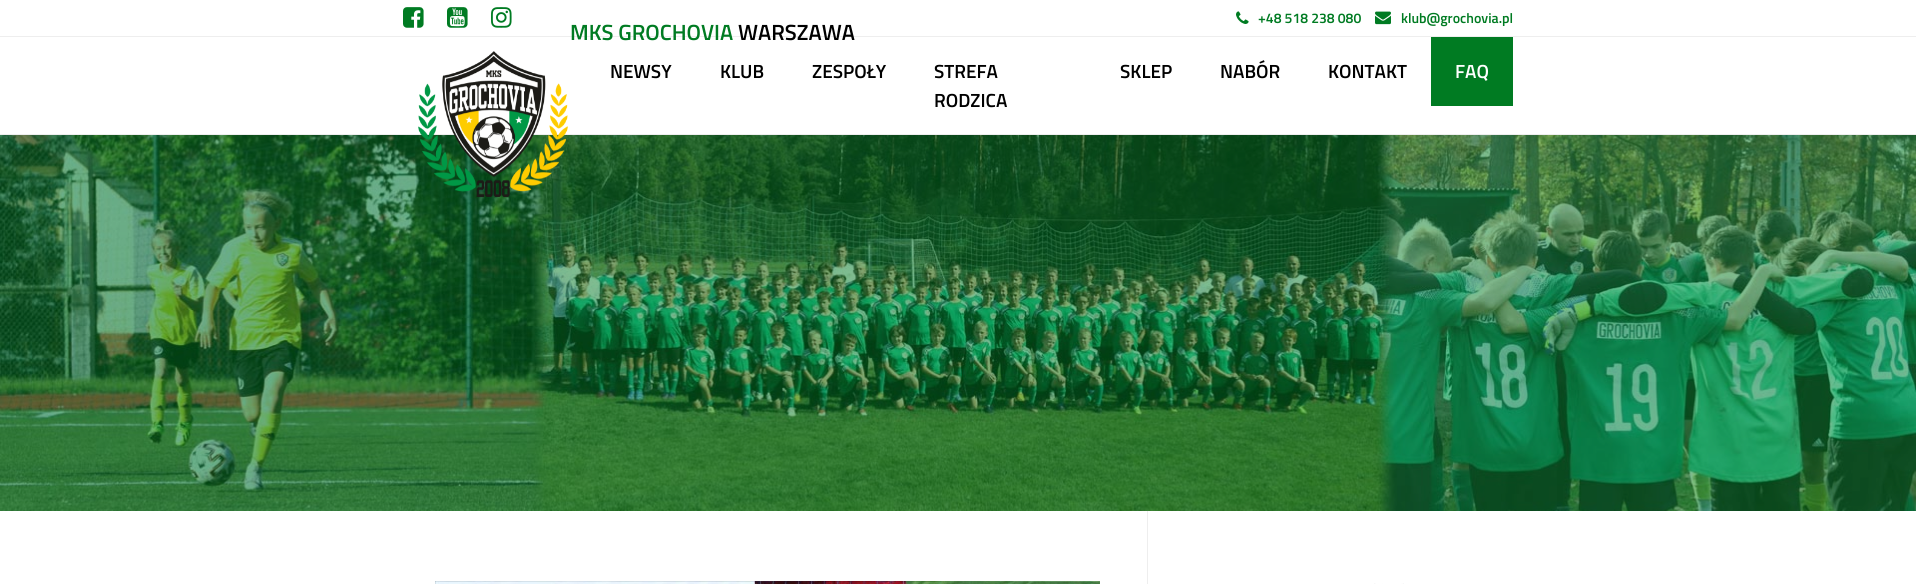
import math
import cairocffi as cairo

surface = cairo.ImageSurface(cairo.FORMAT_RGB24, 1916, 584)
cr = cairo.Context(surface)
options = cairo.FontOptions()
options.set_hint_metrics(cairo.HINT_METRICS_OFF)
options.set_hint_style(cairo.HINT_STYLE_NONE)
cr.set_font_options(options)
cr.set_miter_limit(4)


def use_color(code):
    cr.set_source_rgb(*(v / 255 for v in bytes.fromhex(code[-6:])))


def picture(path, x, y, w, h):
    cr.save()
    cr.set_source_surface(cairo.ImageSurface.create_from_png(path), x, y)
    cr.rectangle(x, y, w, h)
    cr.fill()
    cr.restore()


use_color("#ffffff")
cr.paint()
use_color("#eeeeee")
cr.rectangle(0, 36, 1916, 1)
cr.fill()
picture("img1.png", 403, 7, 21, 21)
picture("img2.png", 447, 7, 21, 21)
picture("img3.png", 491, 7, 21, 21)
picture("img4.png", 1236, 11, 13, 13)
cr.select_font_face("Titillium Web SemiBold")
cr.set_font_size(14)
use_color("#007b22")
cr.move_to(1258, 23)
cr.show_text("+48 518 238 080")
picture("img5.png", 1375, 11, 16, 14)
cr.move_to(1401, 23)
cr.show_text("klub@grochovia.pl")
use_color("#eeeeee")
cr.rectangle(0, 134, 1916, 1)
cr.fill()
cr.set_font_size(22)
use_color("#007b22")
cr.move_to(570, 40)
cr.show_text("MKS GROCHOVIA")
use_color("#000000")
cr.move_to(738, 40)
cr.show_text("WARSZAWA")
picture("img7.png", 0, 135, 1916, 376)
picture("img6.png", 418, 51, 150, 146)
cr.set_font_size(19)
cr.move_to(610, 78)
cr.show_text("NEWSY")
cr.move_to(720, 78)
cr.show_text("KLUB")
cr.move_to(812, 78)
cr.show_text("ZESPOŁY")
cr.move_to(934, 78)
cr.show_text("STREFA")
cr.move_to(934, 107)
cr.show_text("RODZICA")
cr.move_to(1120, 78)
cr.show_text("SKLEP")
cr.move_to(1220, 78)
cr.show_text("NABÓR")
cr.move_to(1328, 78)
cr.show_text("KONTAKT")
use_color("#007b22")
cr.rectangle(1431, 37, 82, 69)
cr.fill()
use_color("#ffffff")
cr.move_to(1455, 78)
cr.show_text("FAQ")
use_color("#eeeeee")
cr.rectangle(1147, 511, 1, 73)
cr.fill()
picture("img8.png", 435, 581, 665, 3)
picture("img9.png", 1374, 583, 30, 1)
surface.write_to_png("result.png")
